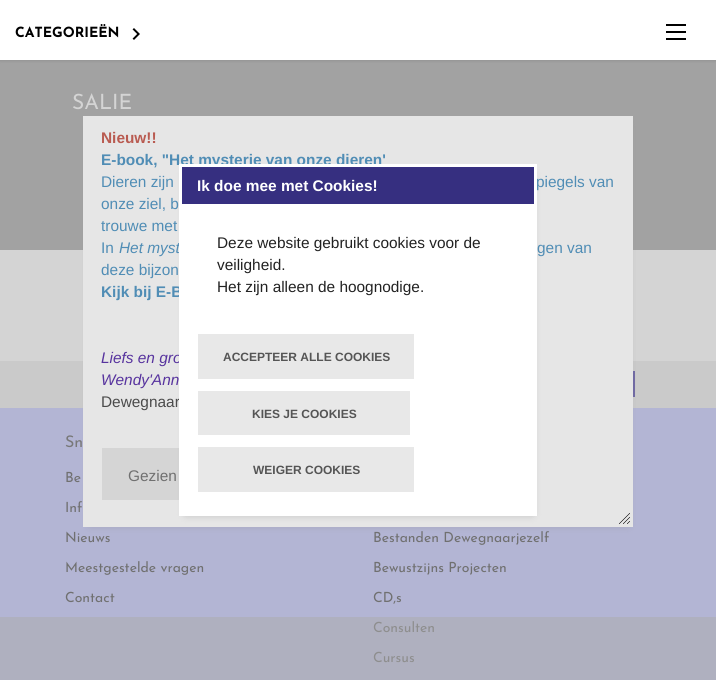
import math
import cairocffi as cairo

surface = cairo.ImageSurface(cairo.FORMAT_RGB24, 716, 680)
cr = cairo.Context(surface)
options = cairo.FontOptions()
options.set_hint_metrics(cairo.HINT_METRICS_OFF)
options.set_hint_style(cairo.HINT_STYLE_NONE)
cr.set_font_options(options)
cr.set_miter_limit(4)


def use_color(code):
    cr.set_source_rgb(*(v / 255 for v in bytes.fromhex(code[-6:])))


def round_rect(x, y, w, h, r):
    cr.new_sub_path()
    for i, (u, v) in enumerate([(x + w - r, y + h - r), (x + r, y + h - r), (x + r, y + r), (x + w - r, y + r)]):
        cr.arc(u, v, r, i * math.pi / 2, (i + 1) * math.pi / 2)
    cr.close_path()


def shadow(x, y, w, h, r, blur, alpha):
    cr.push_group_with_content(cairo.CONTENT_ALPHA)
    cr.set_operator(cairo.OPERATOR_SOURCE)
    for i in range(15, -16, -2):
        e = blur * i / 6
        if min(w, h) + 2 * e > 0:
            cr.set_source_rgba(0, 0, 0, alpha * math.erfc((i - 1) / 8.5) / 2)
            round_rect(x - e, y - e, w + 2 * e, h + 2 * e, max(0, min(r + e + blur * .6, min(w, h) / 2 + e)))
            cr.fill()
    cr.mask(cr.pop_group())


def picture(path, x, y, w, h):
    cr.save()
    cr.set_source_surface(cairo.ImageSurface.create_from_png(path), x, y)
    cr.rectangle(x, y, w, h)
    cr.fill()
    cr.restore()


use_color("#d4d4d4")
cr.paint()
use_color("#a2a2a2")
cr.rectangle(0, 60, 716, 190)
cr.fill()
use_color("#808080")
shadow(0, 1, 716, 60, 0, 1.5, 0.5)
use_color("#ffffff")
cr.rectangle(0, 0, 716, 60)
cr.fill()
cr.select_font_face("Josefin Sans", cairo.FONT_SLANT_NORMAL, cairo.FONT_WEIGHT_BOLD)
cr.set_font_size(14)
use_color("#000000")
cr.move_to(15, 37)
cr.show_text("CATEGORIEËN")
picture("img1.png", 132, 28, 8, 12)
cr.rectangle(666, 24, 20, 2)
cr.fill()
cr.rectangle(666, 31, 20, 2)
cr.fill()
cr.rectangle(666, 38, 20, 2)
cr.fill()
cr.select_font_face("Josefin Sans")
cr.set_font_size(21)
use_color("#d4d4d4")
cr.move_to(72, 109)
cr.show_text("SALIE")
use_color("#cacaca")
cr.rectangle(0, 361, 716, 47)
cr.fill()
use_color("#6f68a3")
cr.rectangle(633, 371, 2, 26)
cr.fill()
use_color("#b3b5d4")
cr.rectangle(0, 408, 716, 209)
cr.fill()
use_color("#afb0bf")
cr.rectangle(0, 617, 716, 63)
cr.fill()
cr.set_font_size(16)
use_color("#787878")
cr.move_to(65, 447)
cr.show_text("Sn")
cr.set_font_size(14)
use_color("#707070")
cr.move_to(65, 482)
cr.show_text("Be")
cr.move_to(65, 512)
cr.show_text("Inf")
cr.move_to(65, 542)
cr.show_text("Nieuws")
cr.move_to(65, 572)
cr.show_text("Meestgestelde vragen")
cr.move_to(65, 602)
cr.show_text("Contact")
cr.move_to(373, 542)
cr.show_text("Bestanden Dewegnaarjezelf")
cr.move_to(373, 572)
cr.show_text("Bewustzijns Projecten")
cr.move_to(373, 602)
cr.show_text("CD,s")
use_color("#8e8e8e")
cr.move_to(373, 632)
cr.show_text("Consulten")
cr.move_to(373, 662)
cr.show_text("Cursus")
use_color("#8d8d8d")
shadow(90, 126, 538, 399, 0, 4.5, 0.5)
use_color("#e6e6e6")
cr.rectangle(83, 116, 550, 411)
cr.fill()
cr.select_font_face("Liberation Sans", cairo.FONT_SLANT_NORMAL, cairo.FONT_WEIGHT_BOLD)
cr.set_font_size(15.4)
use_color("#b95b51")
cr.move_to(101, 143)
cr.show_text("Nieuw!!")
use_color("#508db5")
cr.move_to(101, 165)
cr.show_text("E-book, \"Het mysterie van onze dieren'")
cr.select_font_face("Liberation Sans")
cr.move_to(101, 187)
cr.show_text("Dieren zijn")
cr.move_to(536, 187)
cr.show_text("piegels van")
cr.move_to(101, 209)
cr.show_text("onze ziel, b")
cr.move_to(101, 231)
cr.show_text("trouwe met")
cr.move_to(101, 253)
cr.show_text("In")
cr.select_font_face("Liberation Sans", cairo.FONT_SLANT_ITALIC)
cr.move_to(119, 253)
cr.show_text("Het myst")
cr.select_font_face("Liberation Sans")
cr.move_to(537, 253)
cr.show_text("gen van")
cr.move_to(101, 275)
cr.show_text("deze bijzon")
cr.select_font_face("Liberation Sans", cairo.FONT_SLANT_NORMAL, cairo.FONT_WEIGHT_BOLD)
cr.move_to(101, 297)
cr.show_text("Kijk bij E-B")
cr.select_font_face("Liberation Sans", cairo.FONT_SLANT_ITALIC)
use_color("#57339e")
cr.move_to(101, 363)
cr.show_text("Liefs en gro")
cr.move_to(101, 385)
cr.show_text("Wendy'Ann")
cr.select_font_face("Liberation Sans")
use_color("#4b4b4b")
cr.move_to(101, 407)
cr.show_text("Dewegnaar")
use_color("#d5d5d5")
cr.rectangle(102, 448, 77, 52)
cr.fill()
use_color("#707070")
cr.move_to(128, 481)
cr.show_text("Gezien")
picture("img2.png", 619, 513, 11, 11)
use_color("#808080")
shadow(186, 174, 346, 340, 0, 4.5, 0.5)
use_color("#ffffff")
cr.rectangle(179, 164, 358, 352)
cr.fill()
use_color("#362f80")
cr.rectangle(182, 167, 352, 37)
cr.fill()
cr.select_font_face("Liberation Sans", cairo.FONT_SLANT_NORMAL, cairo.FONT_WEIGHT_BOLD)
use_color("#ffffff")
cr.move_to(197, 191)
cr.show_text("Ik doe mee met Cookies!")
cr.select_font_face("Liberation Sans")
use_color("#222222")
cr.move_to(217, 248)
cr.show_text("Deze website gebruikt cookies voor de")
cr.move_to(217, 270)
cr.show_text("veiligheid.")
cr.move_to(217, 292)
cr.show_text("Het zijn alleen de hoognodige.")
use_color("#e8e8e8")
cr.rectangle(198, 334, 216, 45)
cr.fill()
cr.select_font_face("Liberation Sans", cairo.FONT_SLANT_NORMAL, cairo.FONT_WEIGHT_BOLD)
cr.set_font_size(12)
use_color("#555555")
cr.move_to(223, 361)
cr.show_text("ACCEPTEER ALLE COOKIES")
use_color("#e8e8e8")
cr.rectangle(198, 391, 212, 44)
cr.fill()
use_color("#555555")
cr.move_to(252, 418)
cr.show_text("KIES JE COOKIES")
use_color("#e8e8e8")
cr.rectangle(198, 447, 216, 45)
cr.fill()
use_color("#555555")
cr.move_to(253, 474)
cr.show_text("WEIGER COOKIES")
surface.write_to_png("result.png")
